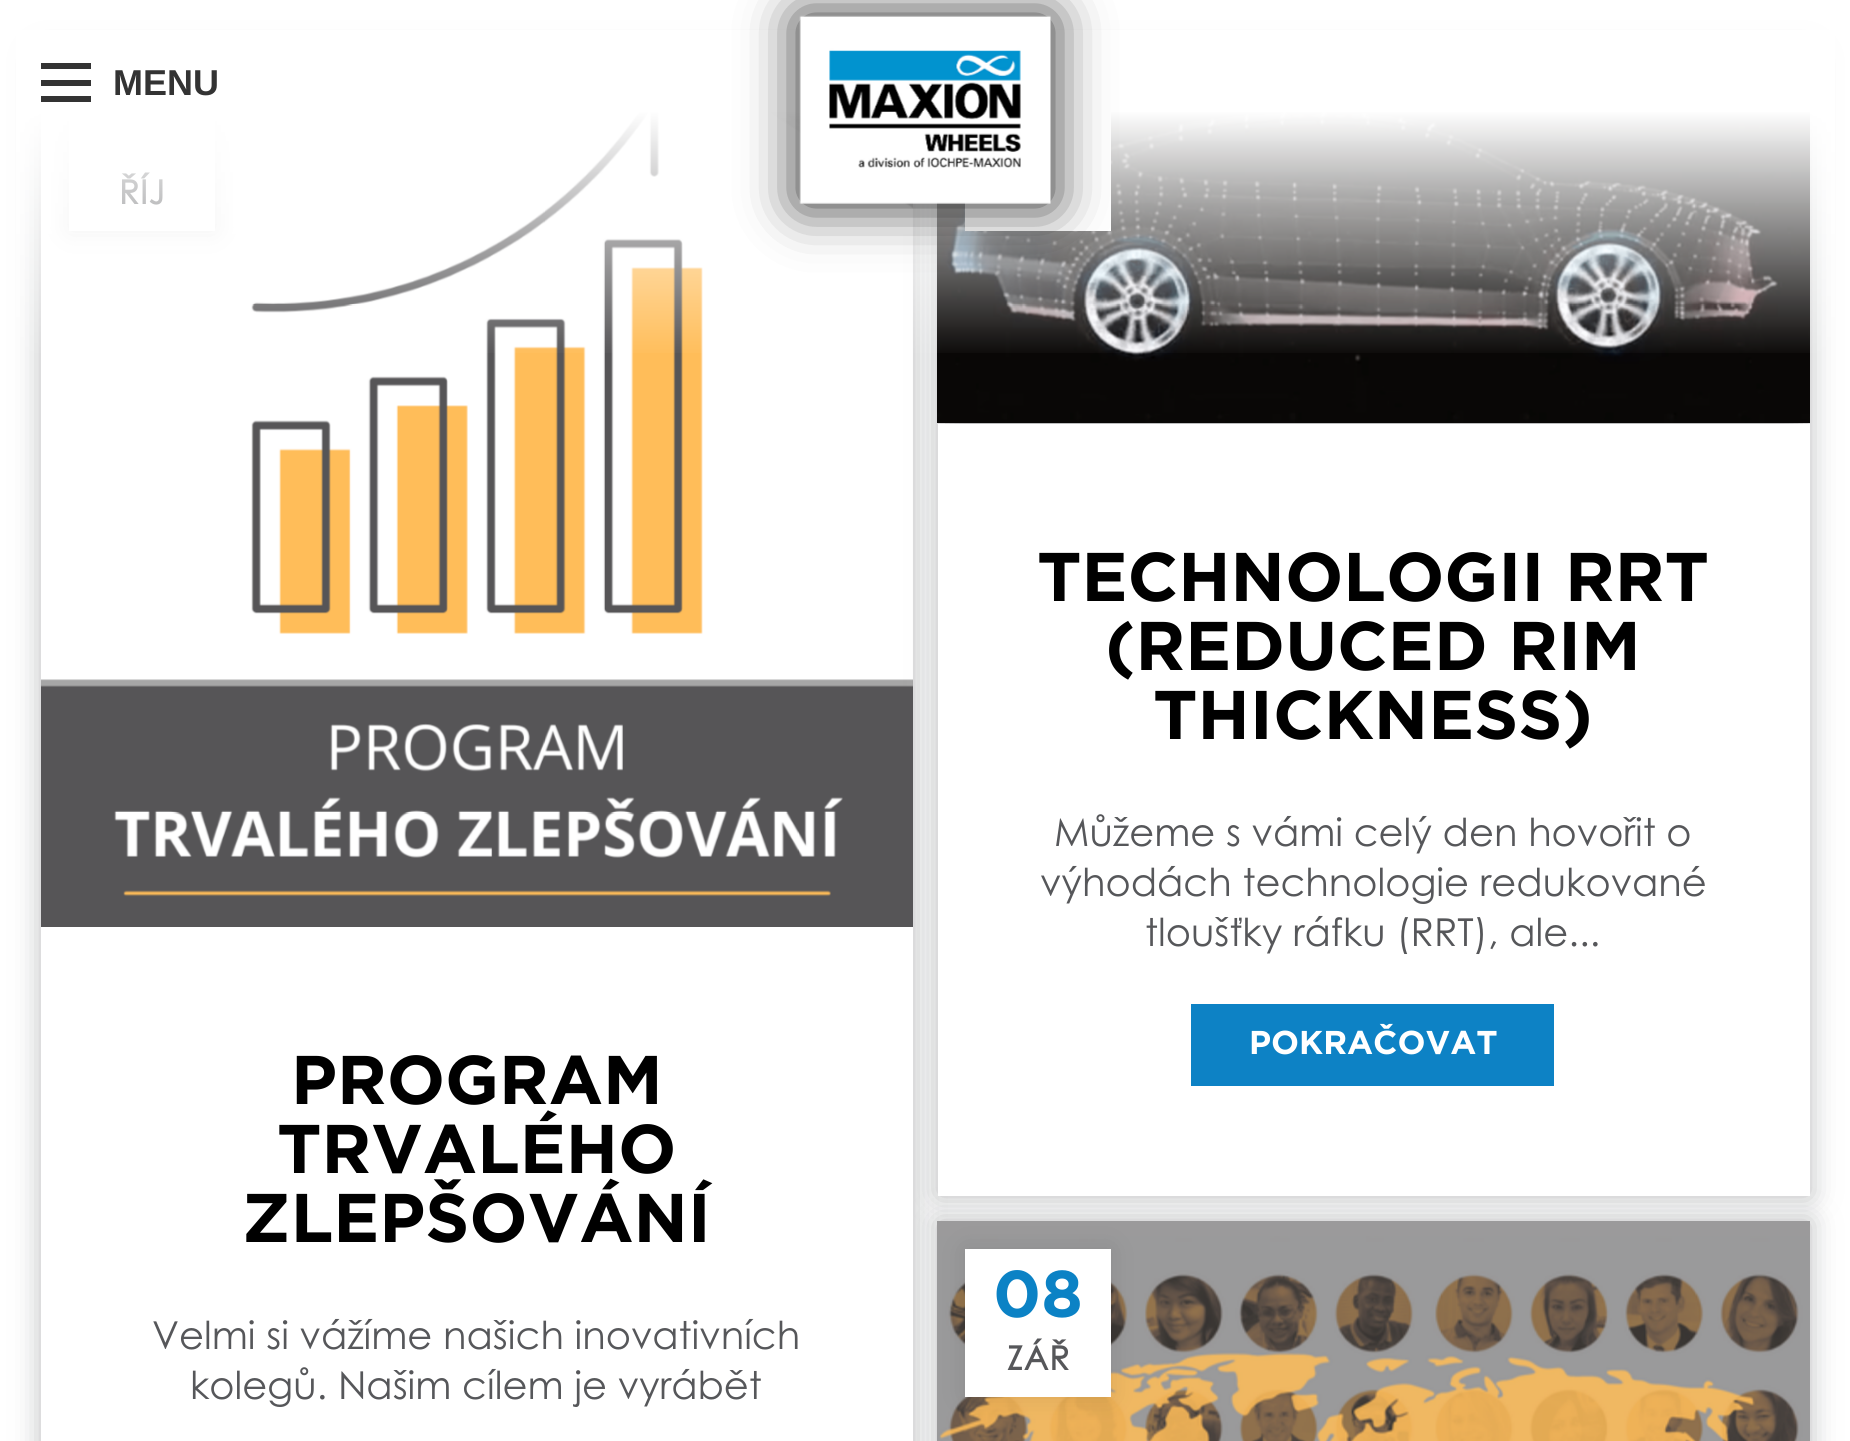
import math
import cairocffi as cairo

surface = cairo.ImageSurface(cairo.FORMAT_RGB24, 1850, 1441)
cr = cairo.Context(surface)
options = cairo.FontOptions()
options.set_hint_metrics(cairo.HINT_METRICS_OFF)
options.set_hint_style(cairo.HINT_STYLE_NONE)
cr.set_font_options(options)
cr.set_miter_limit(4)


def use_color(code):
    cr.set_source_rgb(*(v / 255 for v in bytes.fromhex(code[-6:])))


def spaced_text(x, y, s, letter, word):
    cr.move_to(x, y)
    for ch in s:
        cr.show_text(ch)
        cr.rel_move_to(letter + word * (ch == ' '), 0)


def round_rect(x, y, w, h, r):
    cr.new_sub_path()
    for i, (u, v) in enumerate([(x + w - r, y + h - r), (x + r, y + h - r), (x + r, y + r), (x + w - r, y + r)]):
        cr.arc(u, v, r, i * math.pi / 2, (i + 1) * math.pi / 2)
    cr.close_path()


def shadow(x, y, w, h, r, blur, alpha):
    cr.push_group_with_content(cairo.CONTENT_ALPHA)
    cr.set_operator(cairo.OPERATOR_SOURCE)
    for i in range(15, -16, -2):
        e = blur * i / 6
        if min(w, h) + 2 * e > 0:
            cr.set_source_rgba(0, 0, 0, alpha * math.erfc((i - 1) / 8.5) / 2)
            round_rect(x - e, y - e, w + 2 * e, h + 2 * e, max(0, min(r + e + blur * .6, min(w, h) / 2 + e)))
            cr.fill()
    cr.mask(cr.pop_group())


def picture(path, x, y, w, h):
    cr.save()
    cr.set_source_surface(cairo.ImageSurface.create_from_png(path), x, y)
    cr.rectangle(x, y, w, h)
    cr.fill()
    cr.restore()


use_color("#ffffff")
cr.paint()
use_color("#56575a")
shadow(41, 55, 872, 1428, 0, 14, 0.4)
picture("img2.png", 41, 112, 872, 815)
use_color("#000000")
shadow(69, 83, 146, 148, 0, 12.5, 0.1)
use_color("#ffffff")
cr.rectangle(69, 112, 146, 119)
cr.fill()
cr.select_font_face("Century Gothic", cairo.FONT_SLANT_NORMAL, cairo.FONT_WEIGHT_BOLD)
cr.set_font_size(33)
use_color("#56575a")
spaced_text(119, 204, "ŘÍJ", 1, 0)
use_color("#56575a")
shadow(938, 55, 872, 1141, 0, 14, 0.4)
picture("img3.png", 937, 112, 873, 311)
use_color("#000000")
shadow(965, 83, 146, 148, 0, 12.5, 0.1)
use_color("#ffffff")
cr.rectangle(965, 112, 146, 119)
cr.fill()
gradient = cairo.LinearGradient(925, 0, 925, 358)
gradient.add_color_stop_rgba(0, 1, 1, 1, 1)
gradient.add_color_stop_rgba(0.31, 1, 1, 1, 1)
gradient.add_color_stop_rgba(1, 1, 1, 1, 0)
cr.set_source(gradient)
cr.rectangle(16, 30, 1819, 323)
cr.fill()
use_color("#333333")
cr.rectangle(41, 80, 50, 6)
cr.fill()
cr.rectangle(41, 63, 50, 6)
cr.fill()
cr.rectangle(41, 96, 50, 6)
cr.fill()
cr.select_font_face("Liberation Sans", cairo.FONT_SLANT_NORMAL, cairo.FONT_WEIGHT_BOLD)
cr.set_font_size(36)
cr.move_to(113, 95)
cr.show_text("MENU")
use_color("#212121")
shadow(800, 17, 251, 187, 0, 27.5, 1)
picture("img1.png", 799, 15, 252, 189)
use_color("#56575a")
shadow(938, 1221, 872, 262, 0, 14, 0.4)
use_color("#ffffff")
cr.rectangle(41, 927, 872, 514)
cr.fill()
cr.select_font_face("Gotham", cairo.FONT_SLANT_NORMAL, cairo.FONT_WEIGHT_BOLD)
cr.set_font_size(68.75)
use_color("#000000")
cr.move_to(291, 1104)
cr.show_text("PROGRAM")
cr.move_to(277, 1173)
cr.show_text("TRVALÉHO")
cr.move_to(242, 1242)
cr.show_text("ZLEPŠOVÁNÍ")
cr.select_font_face("Century Gothic")
cr.set_font_size(38.5)
use_color("#56575a")
cr.move_to(152, 1349)
cr.show_text("Velmi si vážíme našich inovativních")
cr.move_to(190, 1399)
cr.show_text("kolegů. Našim cílem je vyrábět")
use_color("#ffffff")
cr.rectangle(938, 424, 872, 772)
cr.fill()
cr.select_font_face("Gotham", cairo.FONT_SLANT_NORMAL, cairo.FONT_WEIGHT_BOLD)
cr.set_font_size(68.75)
use_color("#000000")
cr.move_to(1037, 601)
cr.show_text("TECHNOLOGII RRT")
cr.move_to(1105, 670)
cr.show_text("(REDUCED RIM")
cr.move_to(1153, 739)
cr.show_text("THICKNESS)")
cr.select_font_face("Century Gothic")
cr.set_font_size(38.5)
use_color("#56575a")
cr.move_to(1054, 846)
cr.show_text("Můžeme s vámi celý den hovořit o")
cr.move_to(1040, 896)
cr.show_text("výhodách technologie redukované")
cr.move_to(1145, 946)
cr.show_text("tloušťky ráfku (RRT), ale...")
use_color("#0d82c5")
cr.rectangle(1191, 1004, 363, 82)
cr.fill()
cr.select_font_face("Gotham", cairo.FONT_SLANT_NORMAL, cairo.FONT_WEIGHT_BOLD)
cr.set_font_size(33)
use_color("#ffffff")
cr.move_to(1249, 1054)
cr.show_text("POKRAČOVAT")
picture("img4.png", 937, 1221, 873, 220)
use_color("#000000")
shadow(965, 1249, 146, 148, 0, 12.5, 0.1)
use_color("#ffffff")
cr.rectangle(965, 1249, 146, 148)
cr.fill()
cr.set_font_size(66)
use_color("#0b82c5")
cr.move_to(993, 1317)
cr.show_text("08")
cr.select_font_face("Century Gothic", cairo.FONT_SLANT_NORMAL, cairo.FONT_WEIGHT_BOLD)
cr.set_font_size(33)
use_color("#56575a")
spaced_text(1007, 1370, "ZÁŘ", 1, 0)
surface.write_to_png("result.png")
